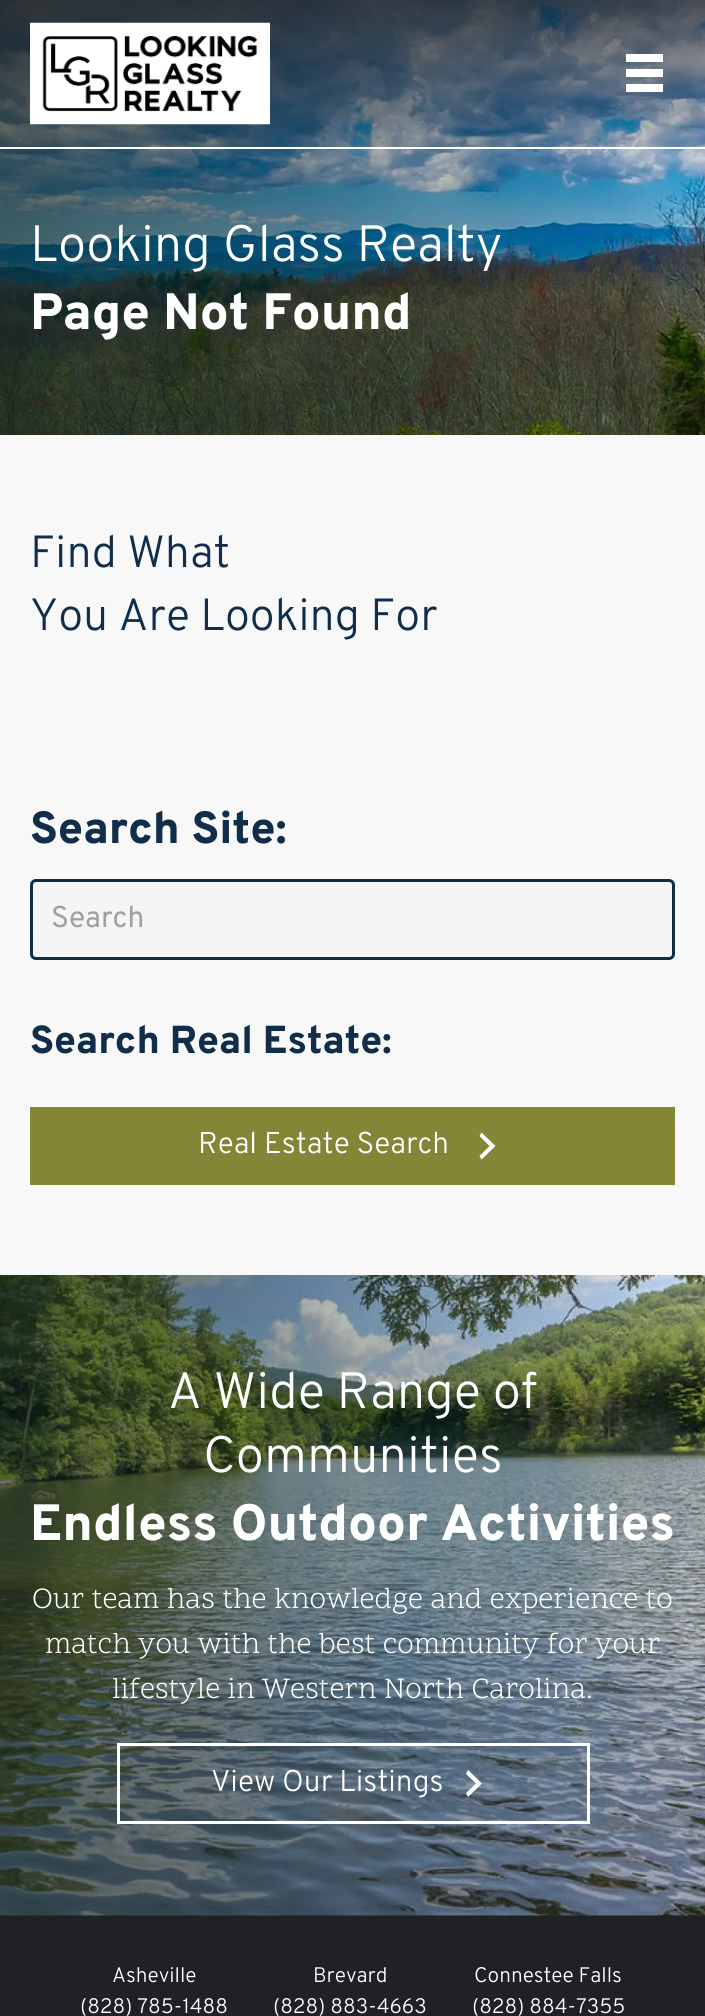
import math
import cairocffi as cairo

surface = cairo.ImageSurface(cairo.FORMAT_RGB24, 705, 2016)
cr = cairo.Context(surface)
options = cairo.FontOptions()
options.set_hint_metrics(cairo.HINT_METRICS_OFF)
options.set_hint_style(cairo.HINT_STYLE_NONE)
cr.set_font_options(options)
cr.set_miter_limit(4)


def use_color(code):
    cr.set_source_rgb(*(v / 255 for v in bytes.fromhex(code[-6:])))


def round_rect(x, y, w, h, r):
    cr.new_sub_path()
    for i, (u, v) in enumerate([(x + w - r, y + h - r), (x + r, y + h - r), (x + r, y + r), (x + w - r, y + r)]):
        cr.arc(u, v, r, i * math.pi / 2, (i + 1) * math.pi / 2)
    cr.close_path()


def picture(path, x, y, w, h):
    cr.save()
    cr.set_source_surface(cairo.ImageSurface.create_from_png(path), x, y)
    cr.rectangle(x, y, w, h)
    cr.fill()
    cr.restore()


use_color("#f8f8f8")
cr.paint()
picture("img2.png", 0, 0, 705, 435)
use_color("#ffffff")
cr.rectangle(0, 147, 705, 2)
cr.fill()
picture("img1.png", 30, 22, 240, 103)
cr.rectangle(626, 54, 37, 8)
cr.fill()
cr.rectangle(626, 69, 37, 8)
cr.fill()
cr.rectangle(626, 84, 37, 8)
cr.fill()
cr.select_font_face("Overpass Light")
cr.set_font_size(51)
cr.move_to(30, 261)
cr.show_text("Looking Glass Realty")
cr.select_font_face("Overpass ExtraBold")
cr.move_to(30, 329)
cr.show_text("Page Not Found")
cr.select_font_face("Overpass Light")
cr.set_font_size(45)
use_color("#102d4a")
cr.move_to(30, 567)
cr.show_text("Find What")
cr.move_to(30, 630)
cr.show_text("You Are Looking For")
cr.select_font_face("Overpass ExtraBold")
cr.move_to(30, 843)
cr.show_text("Search Site:")
use_color("#f5f5f5")
round_rect(31.5, 880.5, 642, 78, 4.5)
cr.fill_preserve()
use_color("#102d4a")
cr.set_line_width(3)
cr.stroke()
cr.select_font_face("Overpass")
cr.set_font_size(30)
use_color("#9fa0a2")
cr.move_to(51, 927)
cr.show_text("Search")
cr.select_font_face("Overpass ExtraBold")
cr.set_font_size(39)
use_color("#102d4a")
cr.move_to(30, 1053)
cr.show_text("Search Real Estate:")
use_color("#838637")
cr.rectangle(30, 1107, 645, 78)
cr.fill()
cr.select_font_face("Overpass Light")
cr.set_font_size(30)
use_color("#ffffff")
cr.move_to(198, 1153)
cr.show_text("Real Estate Search")
cr.new_path()
cr.move_to(479.5, 1156)
cr.line_to(489.5, 1146)
cr.line_to(479.5, 1136)
cr.line_to(481.5, 1132.5)
cr.line_to(495.5, 1146)
cr.line_to(481.5, 1159.5)
cr.close_path()
cr.fill()
use_color("#1f2125")
cr.rectangle(0, 1915, 705, 101)
cr.fill()
picture("img3.png", 0, 1275, 705, 641)
gradient = cairo.LinearGradient(0, 1595, 705, 1595)
gradient.add_color_stop_rgba(0, 0.051, 0.122, 0.094, 0.6)
gradient.add_color_stop_rgba(1, 0.051, 0.122, 0.094, 0)
cr.set_source(gradient)
cr.rectangle(0, 1275, 680, 641)
cr.fill()
cr.set_font_size(51)
use_color("#ffffff")
cr.move_to(168, 1408)
cr.show_text("A Wide Range of")
cr.move_to(203, 1472)
cr.show_text("Communities")
cr.select_font_face("Overpass ExtraBold")
cr.move_to(30, 1540)
cr.show_text("Endless Outdoor Activities")
cr.select_font_face("Scope One")
cr.set_font_size(30)
cr.move_to(32, 1608)
cr.show_text("Our team has the knowledge and experience to")
cr.move_to(45, 1653)
cr.show_text("match you with the best community for your")
cr.move_to(112, 1698)
cr.show_text("lifestyle in Western North Carolina.")
cr.rectangle(118.5, 1744.5, 470, 78)
cr.stroke()
cr.select_font_face("Overpass Light")
cr.move_to(211, 1791)
cr.show_text("View Our Listings")
cr.new_path()
cr.move_to(466, 1793)
cr.line_to(476, 1783.5)
cr.line_to(466, 1774)
cr.line_to(468, 1770)
cr.line_to(482, 1783.5)
cr.line_to(468, 1797)
cr.close_path()
cr.fill()
cr.set_font_size(21)
cr.move_to(112, 1982)
cr.show_text("Asheville")
cr.move_to(80, 2013)
cr.show_text("(828) 785-1488")
cr.move_to(313, 1982)
cr.show_text("Brevard")
cr.move_to(273, 2013)
cr.show_text("(828) 883-4663")
cr.move_to(474, 1982)
cr.show_text("Connestee Falls")
cr.move_to(472, 2013)
cr.show_text("(828) 884-7355")
surface.write_to_png("result.png")
